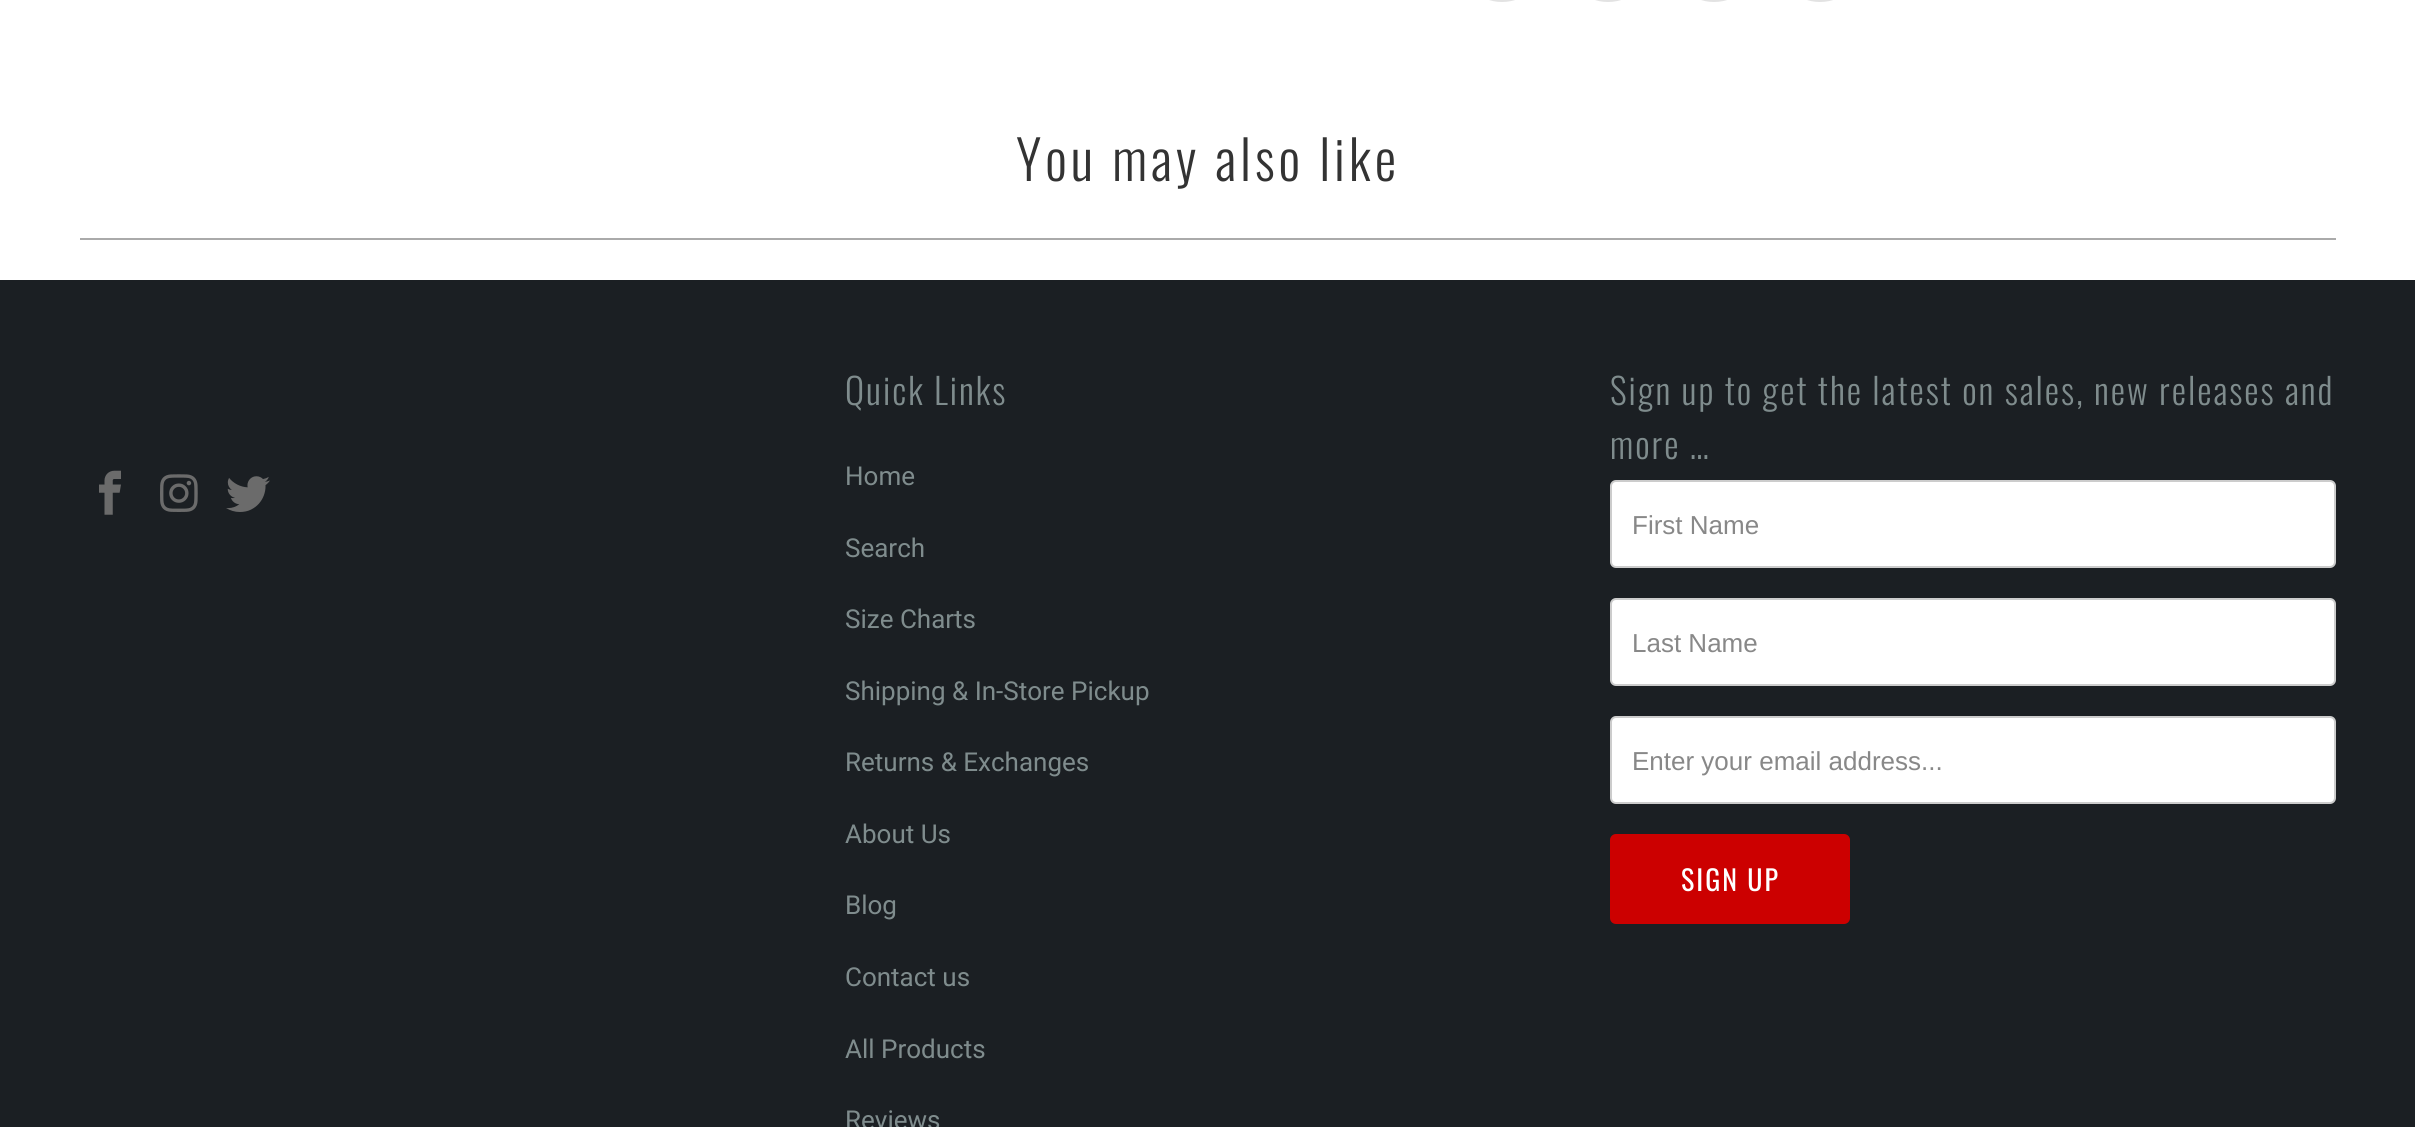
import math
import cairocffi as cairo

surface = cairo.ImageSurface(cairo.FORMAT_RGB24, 2415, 1127)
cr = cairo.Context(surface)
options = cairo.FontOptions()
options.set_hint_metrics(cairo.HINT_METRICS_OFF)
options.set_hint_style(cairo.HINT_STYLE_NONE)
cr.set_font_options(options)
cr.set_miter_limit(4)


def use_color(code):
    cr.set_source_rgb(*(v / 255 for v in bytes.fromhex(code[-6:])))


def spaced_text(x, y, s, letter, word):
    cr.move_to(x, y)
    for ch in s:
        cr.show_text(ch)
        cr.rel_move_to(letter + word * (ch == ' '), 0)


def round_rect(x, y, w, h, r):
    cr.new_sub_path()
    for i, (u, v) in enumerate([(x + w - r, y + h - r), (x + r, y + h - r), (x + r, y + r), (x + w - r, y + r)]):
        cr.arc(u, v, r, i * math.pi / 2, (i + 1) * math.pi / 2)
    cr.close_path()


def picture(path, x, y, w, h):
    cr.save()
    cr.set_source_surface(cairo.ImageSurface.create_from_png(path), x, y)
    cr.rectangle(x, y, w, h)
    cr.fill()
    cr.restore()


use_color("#ffffff")
cr.paint()
round_rect(1459, -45, 86, 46, 43)
use_color("#e2e2e2")
cr.stroke()
round_rect(1565, -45, 86, 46, 43)
cr.stroke()
round_rect(1671, -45, 86, 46, 43)
cr.stroke()
round_rect(1777, -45, 86, 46, 43)
cr.stroke()
cr.select_font_face("Oswald Light")
cr.set_font_size(54)
use_color("#333333")
spaced_text(1016, 181, "You may also like", 4, 0)
use_color("#aaaaaa")
cr.rectangle(80, 238, 2256, 2)
cr.fill()
use_color("#1b1f23")
cr.rectangle(0, 280, 2415, 847)
cr.fill()
picture("img1.png", 99, 470, 22, 45)
picture("img2.png", 160, 474, 38, 38)
picture("img3.png", 226, 476, 44, 36)
cr.set_font_size(36)
use_color("#7f8c8d")
spaced_text(845, 405, "Quick Links", 2, 0)
cr.select_font_face("Roboto")
cr.set_font_size(26)
cr.move_to(845, 485)
cr.show_text("Home")
cr.move_to(845, 557)
cr.show_text("Search")
cr.move_to(845, 628)
cr.show_text("Size Charts")
cr.move_to(845, 700)
cr.show_text("Shipping & In-Store Pickup")
cr.move_to(845, 771)
cr.show_text("Returns & Exchanges")
cr.move_to(845, 843)
cr.show_text("About Us")
cr.move_to(845, 914)
cr.show_text("Blog")
cr.move_to(845, 986)
cr.show_text("Contact us")
cr.move_to(845, 1058)
cr.show_text("All Products")
cr.move_to(845, 1129)
cr.show_text("Reviews")
cr.select_font_face("Oswald Light")
cr.set_font_size(36)
spaced_text(1610, 405, "Sign up to get the latest on sales, new releases and", 2, 0)
spaced_text(1610, 459, "more …", 2, 0)
use_color("#ffffff")
round_rect(1611, 481, 724, 86, 5)
cr.fill_preserve()
use_color("#cccccc")
cr.stroke()
cr.select_font_face("Liberation Sans")
cr.set_font_size(26)
use_color("#888888")
cr.move_to(1632, 534)
cr.show_text("First Name")
use_color("#ffffff")
round_rect(1611, 599, 724, 86, 5)
cr.fill_preserve()
use_color("#cccccc")
cr.stroke()
use_color("#888888")
cr.move_to(1632, 652)
cr.show_text("Last Name")
use_color("#ffffff")
round_rect(1611, 717, 724, 86, 5)
cr.fill_preserve()
use_color("#cccccc")
cr.stroke()
use_color("#888888")
cr.move_to(1632, 770)
cr.show_text("Enter your email address...")
use_color("#cc0000")
round_rect(1611, 835, 238, 88, 5)
cr.fill_preserve()
cr.stroke()
cr.select_font_face("Oswald")
cr.set_font_size(28)
use_color("#ffffff")
spaced_text(1681, 891, "SIGN UP", 2, 0)
surface.write_to_png("result.png")
